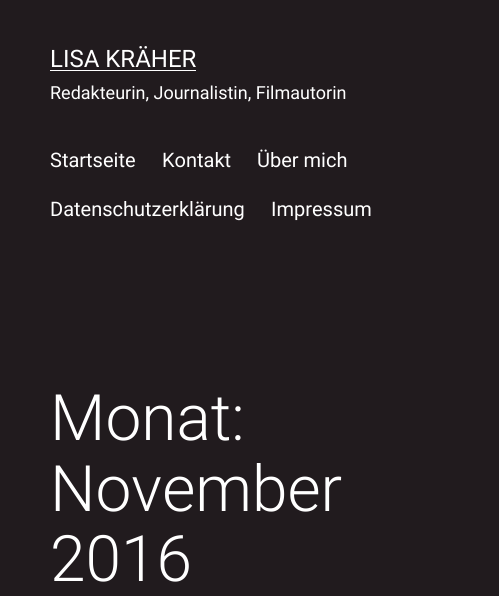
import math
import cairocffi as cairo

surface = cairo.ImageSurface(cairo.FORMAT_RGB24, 499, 596)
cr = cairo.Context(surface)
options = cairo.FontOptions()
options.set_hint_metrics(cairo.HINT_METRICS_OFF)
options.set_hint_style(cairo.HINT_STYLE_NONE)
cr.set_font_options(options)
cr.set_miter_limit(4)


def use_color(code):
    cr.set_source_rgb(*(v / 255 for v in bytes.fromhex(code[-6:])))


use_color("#211b1e")
cr.paint()
cr.select_font_face("Roboto")
cr.set_font_size(24)
use_color("#ffffff")
cr.move_to(50, 67)
cr.show_text("LISA KRÄHER")
cr.rectangle(50, 70, 146, 1)
cr.fill()
cr.set_font_size(18)
cr.move_to(50, 99)
cr.show_text("Redakteurin, Journalistin, Filmautorin")
cr.set_font_size(20)
cr.move_to(50, 167)
cr.show_text("Startseite")
cr.move_to(162, 167)
cr.show_text("Kontakt")
cr.move_to(257, 167)
cr.show_text("Über mich")
cr.move_to(50, 216)
cr.show_text("Datenschutzerklärung")
cr.move_to(271, 216)
cr.show_text("Impressum")
cr.select_font_face("Roboto Light")
cr.set_font_size(64)
cr.move_to(50, 440)
cr.show_text("Monat:")
cr.move_to(50, 511)
cr.show_text("November")
cr.move_to(50, 581)
cr.show_text("2016")
surface.write_to_png("result.png")
